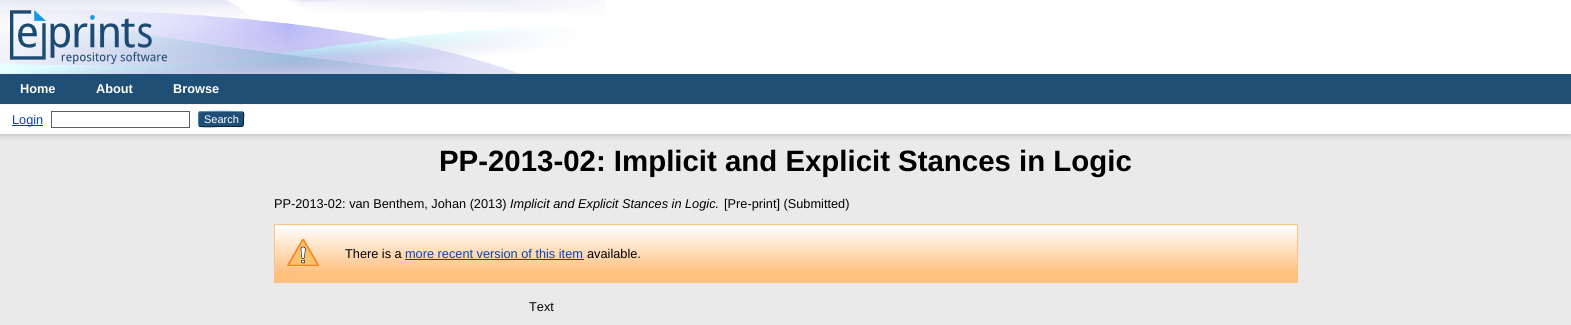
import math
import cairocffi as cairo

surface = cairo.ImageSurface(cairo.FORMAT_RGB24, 1571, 325)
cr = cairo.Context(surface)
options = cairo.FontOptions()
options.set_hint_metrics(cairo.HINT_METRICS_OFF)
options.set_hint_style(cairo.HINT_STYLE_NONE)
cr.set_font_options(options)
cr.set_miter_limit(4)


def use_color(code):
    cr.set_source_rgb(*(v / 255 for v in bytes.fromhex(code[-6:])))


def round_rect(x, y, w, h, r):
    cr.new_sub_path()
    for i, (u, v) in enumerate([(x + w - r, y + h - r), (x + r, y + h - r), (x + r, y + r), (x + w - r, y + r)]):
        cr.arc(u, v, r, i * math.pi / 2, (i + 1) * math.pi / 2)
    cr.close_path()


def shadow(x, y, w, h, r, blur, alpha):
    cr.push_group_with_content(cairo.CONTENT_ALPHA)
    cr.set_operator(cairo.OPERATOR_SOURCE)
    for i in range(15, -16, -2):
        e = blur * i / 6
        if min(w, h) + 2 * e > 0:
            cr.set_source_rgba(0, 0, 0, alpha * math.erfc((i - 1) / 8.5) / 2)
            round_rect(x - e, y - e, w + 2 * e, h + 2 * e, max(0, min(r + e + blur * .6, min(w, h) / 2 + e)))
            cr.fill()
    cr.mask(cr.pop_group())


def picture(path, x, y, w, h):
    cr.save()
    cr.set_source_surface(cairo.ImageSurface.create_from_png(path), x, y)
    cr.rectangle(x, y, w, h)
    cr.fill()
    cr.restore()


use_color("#eaeaea")
cr.paint()
use_color("#ffffff")
cr.rectangle(0, 0, 1571, 74)
cr.fill()
picture("img1.png", 0, 0, 605, 74)
picture("img2.png", 10, 10, 157, 54)
use_color("#204f76")
cr.rectangle(0, 74, 1571, 30)
cr.fill()
use_color("#ffffff")
cr.rectangle(0, 104, 1571, 1)
cr.fill()
cr.select_font_face("Liberation Sans", cairo.FONT_SLANT_NORMAL, cairo.FONT_WEIGHT_BOLD)
cr.set_font_size(12.75)
cr.move_to(20, 93)
cr.show_text("Home")
cr.move_to(96, 93)
cr.show_text("About")
cr.move_to(173, 93)
cr.show_text("Browse")
use_color("#646464")
shadow(0, 107, 1571, 29, 0, 3, 0.3)
use_color("#ffffff")
cr.rectangle(0, 105, 1571, 29)
cr.fill()
use_color("#0645ad")
cr.rectangle(12, 125, 31, 1)
cr.fill()
cr.select_font_face("Liberation Sans")
cr.move_to(12, 124)
cr.show_text("Login")
cr.rectangle(51.5, 111.5, 138, 16)
use_color("#606060")
cr.set_line_width(1)
cr.stroke()
use_color("#1f4f76")
round_rect(198, 111, 46, 16, 3)
cr.fill()
cr.new_path()
cr.move_to(199, 112)
cr.curve_to(200.5, 111, 241.5, 111, 243, 112)
use_color("#5b97c7")
cr.stroke()
cr.new_path()
cr.move_to(243, 112)
cr.curve_to(244.5, 114, 243.5, 117, 243.5, 119)
cr.curve_to(243.5, 128, 244, 126.5, 234.5, 126.5)
cr.line_to(221, 126.5)
cr.curve_to(217.5, 126.5, 201, 127.5, 199, 126)
use_color("#0d2131")
cr.stroke()
cr.new_path()
cr.move_to(199, 126)
cr.curve_to(198, 124.5, 198.5, 120.5, 198.5, 119)
cr.curve_to(198.5, 117.5, 198, 113.5, 199, 112)
use_color("#5287b3")
cr.stroke()
cr.set_font_size(11)
use_color("#ffffff")
cr.move_to(204, 123)
cr.show_text("Search")
cr.select_font_face("Liberation Sans", cairo.FONT_SLANT_NORMAL, cairo.FONT_WEIGHT_BOLD)
cr.set_font_size(29.4)
use_color("#000000")
cr.move_to(439, 171)
cr.show_text("PP-2013-02: Implicit and Explicit Stances in Logic")
cr.select_font_face("Liberation Sans")
cr.set_font_size(12.75)
cr.move_to(274, 208)
cr.show_text("PP-2013-02: van Benthem, Johan (2013)")
cr.select_font_face("Liberation Sans", cairo.FONT_SLANT_ITALIC)
cr.move_to(510, 208)
cr.show_text("Implicit and Explicit Stances in Logic.")
cr.select_font_face("Liberation Sans")
cr.move_to(724, 208)
cr.show_text("[Pre-print] (Submitted)")
use_color("#ffc080")
cr.rectangle(275, 226, 1022, 56)
cr.fill()
picture("img3.png", 275, 225, 1022, 47)
cr.rectangle(274.5, 224.5, 1023, 58)
cr.stroke()
picture("img4.png", 287, 239, 32, 27)
use_color("#000000")
cr.move_to(345, 258)
cr.show_text("There is a")
use_color("#0645ad")
cr.move_to(405, 258)
cr.show_text("more recent version of this item")
cr.rectangle(405, 259, 179, 1)
cr.fill()
use_color("#000000")
cr.move_to(587, 258)
cr.show_text("available.")
cr.move_to(529, 311)
cr.show_text("Text")
surface.write_to_png("result.png")
